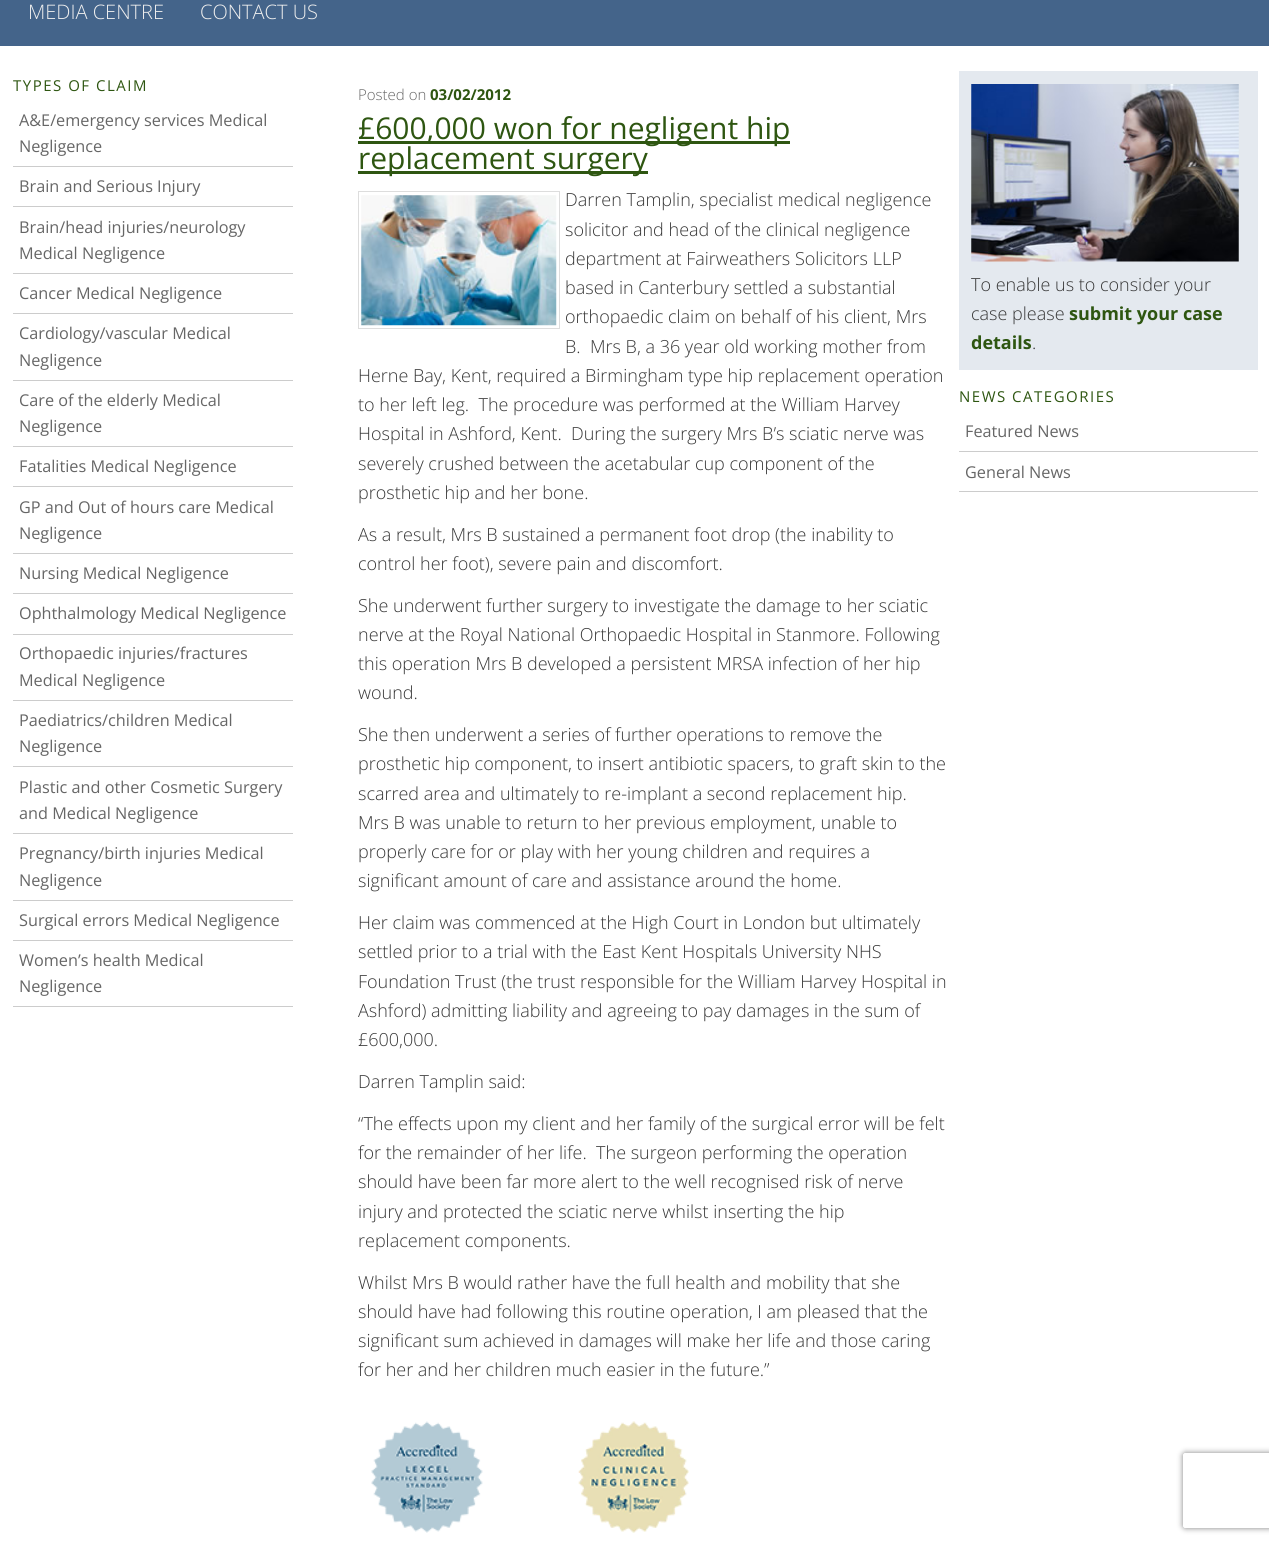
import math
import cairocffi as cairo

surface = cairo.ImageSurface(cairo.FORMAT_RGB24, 1269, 1544)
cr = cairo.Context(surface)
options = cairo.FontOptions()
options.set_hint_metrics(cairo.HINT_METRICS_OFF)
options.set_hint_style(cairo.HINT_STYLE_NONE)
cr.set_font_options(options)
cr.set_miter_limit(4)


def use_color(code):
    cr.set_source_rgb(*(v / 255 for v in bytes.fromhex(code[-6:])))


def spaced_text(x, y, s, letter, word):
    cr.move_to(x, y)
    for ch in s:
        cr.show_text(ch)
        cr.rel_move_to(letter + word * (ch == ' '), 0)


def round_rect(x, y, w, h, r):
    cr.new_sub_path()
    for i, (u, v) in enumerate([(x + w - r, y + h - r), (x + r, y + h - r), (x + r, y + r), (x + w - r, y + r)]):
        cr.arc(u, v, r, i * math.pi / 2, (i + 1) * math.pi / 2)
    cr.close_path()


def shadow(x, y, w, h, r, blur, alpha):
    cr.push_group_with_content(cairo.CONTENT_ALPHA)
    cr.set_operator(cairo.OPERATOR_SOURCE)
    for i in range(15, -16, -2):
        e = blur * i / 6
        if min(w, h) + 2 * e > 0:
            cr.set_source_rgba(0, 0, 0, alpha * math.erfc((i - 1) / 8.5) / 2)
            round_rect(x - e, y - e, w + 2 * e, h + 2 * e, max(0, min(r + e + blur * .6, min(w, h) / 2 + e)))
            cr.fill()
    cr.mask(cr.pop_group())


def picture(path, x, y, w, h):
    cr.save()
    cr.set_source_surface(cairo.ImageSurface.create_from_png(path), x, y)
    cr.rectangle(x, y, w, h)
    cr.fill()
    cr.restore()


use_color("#ffffff")
cr.paint()
use_color("#44648a")
cr.rectangle(0, 0, 1269, 46)
cr.fill()
cr.select_font_face("Open Sans Light")
cr.set_font_size(20)
use_color("#eeeeee")
cr.move_to(28, 19)
cr.show_text("MEDIA CENTRE")
cr.move_to(200, 19)
cr.show_text("CONTACT US")
cr.select_font_face("Open Sans")
cr.set_font_size(15)
use_color("#2e5611")
spaced_text(13, 91, "TYPES OF CLAIM", 1.5, 0)
use_color("#cccccc")
cr.rectangle(13, 166, 280, 1)
cr.fill()
cr.set_font_size(16.25)
use_color("#666666")
cr.move_to(19, 126)
cr.show_text("A&E/emergency services Medical")
cr.move_to(19, 152)
cr.show_text("Negligence")
use_color("#cccccc")
cr.rectangle(13, 206, 280, 1)
cr.fill()
use_color("#666666")
cr.move_to(19, 192)
cr.show_text("Brain and Serious Injury")
use_color("#cccccc")
cr.rectangle(13, 273, 280, 1)
cr.fill()
use_color("#666666")
cr.move_to(19, 233)
cr.show_text("Brain/head injuries/neurology")
cr.move_to(19, 259)
cr.show_text("Medical Negligence")
use_color("#cccccc")
cr.rectangle(13, 313, 280, 1)
cr.fill()
use_color("#666666")
cr.move_to(19, 299)
cr.show_text("Cancer Medical Negligence")
use_color("#cccccc")
cr.rectangle(13, 380, 280, 1)
cr.fill()
use_color("#666666")
cr.move_to(19, 339)
cr.show_text("Cardiology/vascular Medical")
cr.move_to(19, 366)
cr.show_text("Negligence")
use_color("#cccccc")
cr.rectangle(13, 446, 280, 1)
cr.fill()
use_color("#666666")
cr.move_to(19, 406)
cr.show_text("Care of the elderly Medical")
cr.move_to(19, 432)
cr.show_text("Negligence")
use_color("#cccccc")
cr.rectangle(13, 486, 280, 1)
cr.fill()
use_color("#666666")
cr.move_to(19, 472)
cr.show_text("Fatalities Medical Negligence")
use_color("#cccccc")
cr.rectangle(13, 553, 280, 1)
cr.fill()
use_color("#666666")
cr.move_to(19, 513)
cr.show_text("GP and Out of hours care Medical")
cr.move_to(19, 539)
cr.show_text("Negligence")
use_color("#cccccc")
cr.rectangle(13, 593, 280, 1)
cr.fill()
use_color("#666666")
cr.move_to(19, 579)
cr.show_text("Nursing Medical Negligence")
use_color("#cccccc")
cr.rectangle(13, 634, 280, 1)
cr.fill()
use_color("#666666")
cr.move_to(19, 619)
cr.show_text("Ophthalmology Medical Negligence")
use_color("#cccccc")
cr.rectangle(13, 700, 280, 1)
cr.fill()
use_color("#666666")
cr.move_to(19, 659)
cr.show_text("Orthopaedic injuries/fractures")
cr.move_to(19, 686)
cr.show_text("Medical Negligence")
use_color("#cccccc")
cr.rectangle(13, 766, 280, 1)
cr.fill()
use_color("#666666")
cr.move_to(19, 726)
cr.show_text("Paediatrics/children Medical")
cr.move_to(19, 752)
cr.show_text("Negligence")
use_color("#cccccc")
cr.rectangle(13, 833, 280, 1)
cr.fill()
use_color("#666666")
cr.move_to(19, 793)
cr.show_text("Plastic and other Cosmetic Surgery")
cr.move_to(19, 819)
cr.show_text("and Medical Negligence")
use_color("#cccccc")
cr.rectangle(13, 900, 280, 1)
cr.fill()
use_color("#666666")
cr.move_to(19, 859)
cr.show_text("Pregnancy/birth injuries Medical")
cr.move_to(19, 886)
cr.show_text("Negligence")
use_color("#cccccc")
cr.rectangle(13, 940, 280, 1)
cr.fill()
use_color("#666666")
cr.move_to(19, 926)
cr.show_text("Surgical errors Medical Negligence")
use_color("#cccccc")
cr.rectangle(13, 1006, 280, 1)
cr.fill()
use_color("#666666")
cr.move_to(19, 966)
cr.show_text("Women’s health Medical")
cr.move_to(19, 992)
cr.show_text("Negligence")
cr.select_font_face("Open Sans Light")
cr.set_font_size(15)
cr.move_to(358, 100)
cr.show_text("Posted on")
cr.select_font_face("Open Sans", cairo.FONT_SLANT_NORMAL, cairo.FONT_WEIGHT_BOLD)
use_color("#2e5611")
cr.move_to(430, 100)
cr.show_text("03/02/2012")
cr.rectangle(358, 141, 432, 3)
cr.fill()
cr.select_font_face("Open Sans")
cr.set_font_size(30)
cr.move_to(358, 139)
cr.show_text("£600,000 won for negligent hip")
cr.rectangle(358, 171, 290, 3)
cr.fill()
cr.move_to(358, 169)
cr.show_text("replacement surgery")
cr.rectangle(358.5, 191.5, 201, 137)
use_color("#dddddd")
cr.set_line_width(1)
cr.stroke()
picture("img1.png", 361, 195, 196, 131)
cr.select_font_face("Open Sans Light")
cr.set_font_size(18)
use_color("#373737")
cr.move_to(565, 206)
cr.show_text("Darren Tamplin, specialist medical negligence")
cr.move_to(565, 236)
cr.show_text("solicitor and head of the clinical negligence")
cr.move_to(565, 265)
cr.show_text("department at Fairweathers Solicitors LLP")
cr.move_to(565, 294)
cr.show_text("based in Canterbury settled a substantial")
cr.move_to(565, 323)
cr.show_text("orthopaedic claim on behalf of his client, Mrs")
cr.move_to(565, 353)
cr.show_text("B.")
cr.move_to(590, 353)
cr.show_text("Mrs B, a 36 year old working mother from")
cr.move_to(358, 382)
cr.show_text("Herne Bay, Kent, required a Birmingham type hip replacement operation")
cr.move_to(358, 411)
cr.show_text("to her left leg.  The procedure was performed at the William Harvey")
cr.move_to(358, 440)
cr.show_text("Hospital in Ashford, Kent.  During the surgery Mrs B’s sciatic nerve was")
cr.move_to(358, 470)
cr.show_text("severely crushed between the acetabular cup component of the")
cr.move_to(358, 499)
cr.show_text("prosthetic hip and her bone.")
cr.move_to(358, 541)
cr.show_text("As a result, Mrs B sustained a permanent foot drop (the inability to")
cr.move_to(358, 570)
cr.show_text("control her foot), severe pain and discomfort.")
cr.move_to(358, 612)
cr.show_text("She underwent further surgery to investigate the damage to her sciatic")
cr.move_to(358, 641)
cr.show_text("nerve at the Royal National Orthopaedic Hospital in Stanmore. Following")
cr.move_to(358, 670)
cr.show_text("this operation Mrs B developed a persistent MRSA infection of her hip")
cr.move_to(358, 699)
cr.show_text("wound.")
cr.move_to(358, 741)
cr.show_text("She then underwent a series of further operations to remove the")
cr.move_to(358, 770)
cr.show_text("prosthetic hip component, to insert antibiotic spacers, to graft skin to the")
cr.move_to(358, 800)
cr.show_text("scarred area and ultimately to re-implant a second replacement hip.")
cr.move_to(358, 829)
cr.show_text("Mrs B was unable to return to her previous employment, unable to")
cr.move_to(358, 858)
cr.show_text("properly care for or play with her young children and requires a")
cr.move_to(358, 887)
cr.show_text("significant amount of care and assistance around the home.")
cr.move_to(358, 929)
cr.show_text("Her claim was commenced at the High Court in London but ultimately")
cr.move_to(358, 958)
cr.show_text("settled prior to a trial with the East Kent Hospitals University NHS")
cr.move_to(358, 988)
cr.show_text("Foundation Trust (the trust responsible for the William Harvey Hospital in")
cr.move_to(358, 1017)
cr.show_text("Ashford) admitting liability and agreeing to pay damages in the sum of")
cr.move_to(358, 1046)
cr.show_text("£600,000.")
cr.move_to(358, 1088)
cr.show_text("Darren Tamplin said:")
cr.move_to(358, 1130)
cr.show_text("“The effects upon my client and her family of the surgical error will be felt")
cr.move_to(358, 1159)
cr.show_text("for the remainder of her life.  The surgeon performing the operation")
cr.move_to(358, 1188)
cr.show_text("should have been far more alert to the well recognised risk of nerve")
cr.move_to(358, 1218)
cr.show_text("injury and protected the sciatic nerve whilst inserting the hip")
cr.move_to(358, 1247)
cr.show_text("replacement components.")
cr.move_to(358, 1289)
cr.show_text("Whilst Mrs B would rather have the full health and mobility that she")
cr.move_to(358, 1318)
cr.show_text("should have had following this routine operation, I am pleased that the")
cr.move_to(358, 1347)
cr.show_text("significant sum achieved in damages will make her life and those caring")
cr.move_to(358, 1376)
cr.show_text("for her and her children much easier in the future.”")
use_color("#e4e9ef")
cr.rectangle(959, 71, 299, 299)
cr.fill()
picture("img2.png", 971, 84, 268, 178)
use_color("#373737")
cr.move_to(971, 291)
cr.show_text("To enable us to consider your")
cr.move_to(971, 320)
cr.show_text("case please")
cr.select_font_face("Open Sans", cairo.FONT_SLANT_NORMAL, cairo.FONT_WEIGHT_BOLD)
use_color("#2e5611")
cr.move_to(1069, 320)
cr.show_text("submit your case")
cr.move_to(971, 349)
cr.show_text("details")
cr.select_font_face("Open Sans Light")
use_color("#373737")
cr.move_to(1032, 349)
cr.show_text(".")
cr.select_font_face("Open Sans")
cr.set_font_size(15)
use_color("#2e5611")
spaced_text(959, 402, "NEWS CATEGORIES", 1.5, 0)
use_color("#cccccc")
cr.rectangle(959, 451, 299, 1)
cr.fill()
cr.set_font_size(16.25)
use_color("#666666")
cr.move_to(965, 437)
cr.show_text("Featured News")
use_color("#cccccc")
cr.rectangle(959, 491, 299, 1)
cr.fill()
use_color("#666666")
cr.move_to(965, 478)
cr.show_text("General News")
picture("img3.png", 371, 1421, 112, 112)
picture("img4.png", 578, 1421, 111, 112)
cr.save()
cr.set_fill_rule(cairo.FILL_RULE_EVEN_ODD)
cr.new_path()
cr.move_to(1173, 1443)
cr.line_to(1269, 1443)
cr.line_to(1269, 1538)
cr.line_to(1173, 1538)
cr.close_path()
cr.move_to(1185.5, 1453)
cr.line_to(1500.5, 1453)
cr.curve_to(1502, 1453, 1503, 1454, 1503, 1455.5)
cr.line_to(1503, 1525.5)
cr.curve_to(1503, 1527, 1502, 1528, 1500.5, 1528)
cr.line_to(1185.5, 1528)
cr.curve_to(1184, 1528, 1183, 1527, 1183, 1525.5)
cr.line_to(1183, 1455.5)
cr.curve_to(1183, 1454, 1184, 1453, 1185.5, 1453)
cr.close_path()
cr.clip()
use_color("#808080")
shadow(1183, 1453, 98, 75, 2.5, 3, 1)
cr.restore()
surface.write_to_png("result.png")
